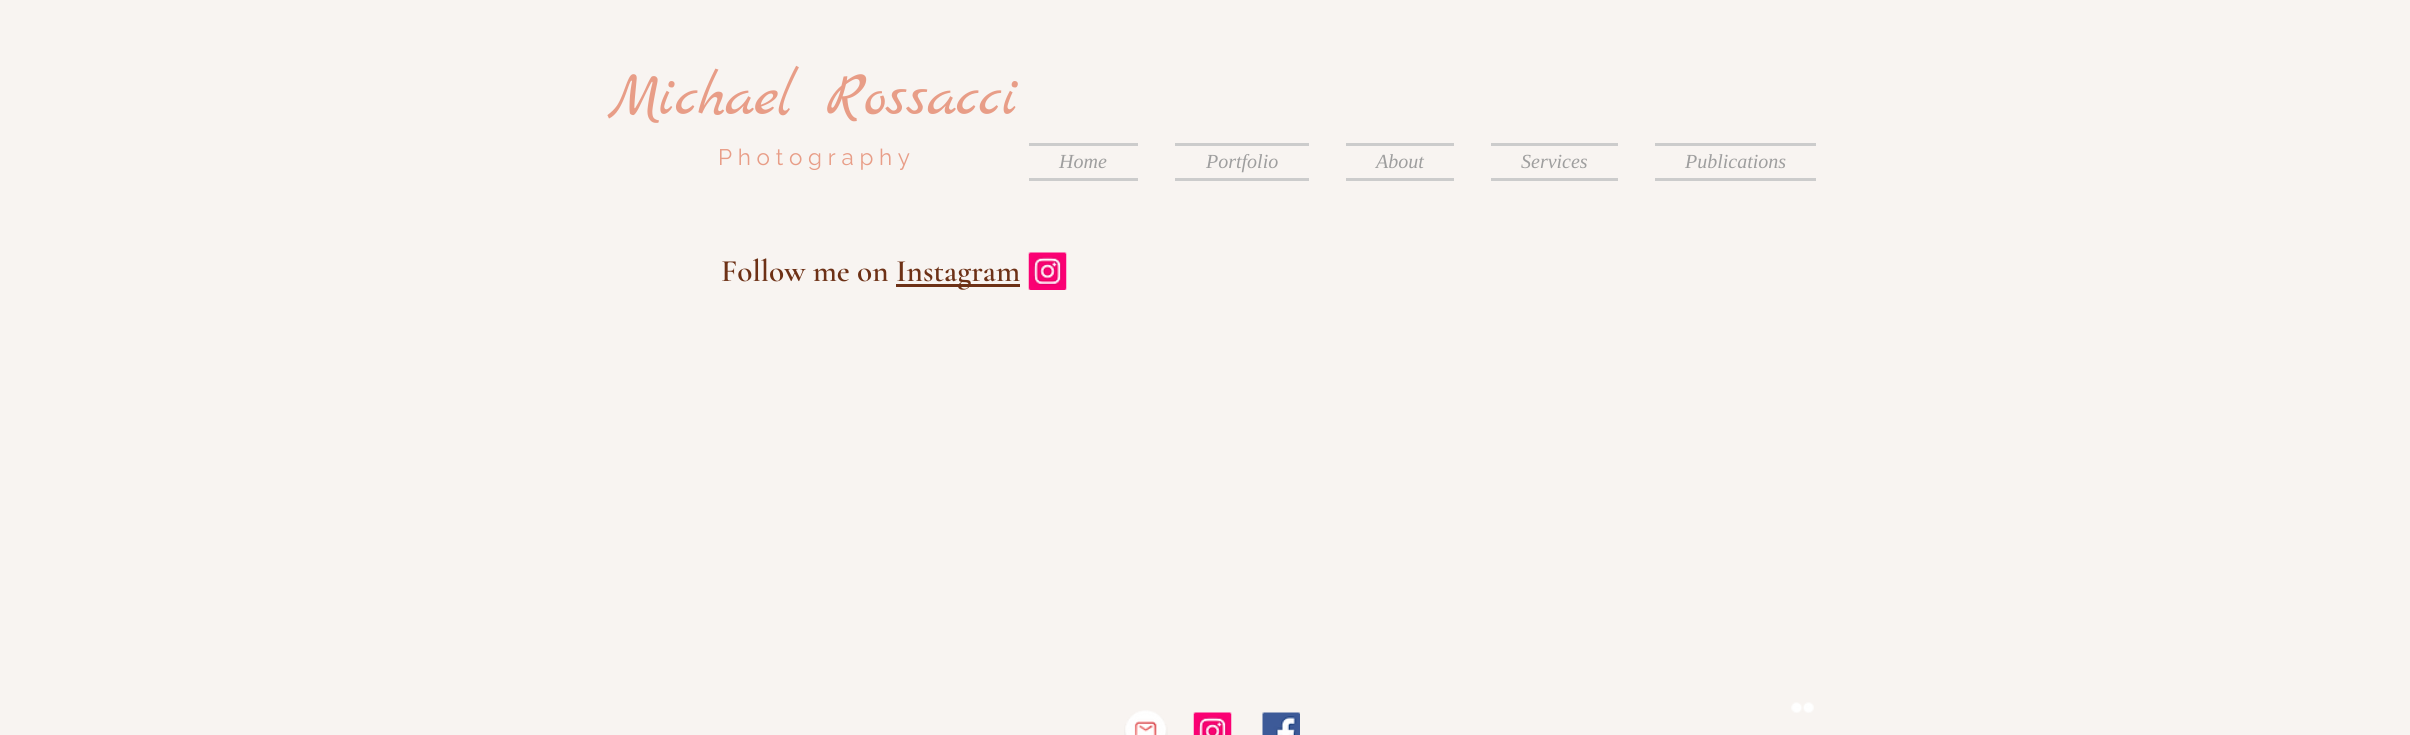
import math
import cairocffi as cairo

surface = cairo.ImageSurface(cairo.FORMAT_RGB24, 2410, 735)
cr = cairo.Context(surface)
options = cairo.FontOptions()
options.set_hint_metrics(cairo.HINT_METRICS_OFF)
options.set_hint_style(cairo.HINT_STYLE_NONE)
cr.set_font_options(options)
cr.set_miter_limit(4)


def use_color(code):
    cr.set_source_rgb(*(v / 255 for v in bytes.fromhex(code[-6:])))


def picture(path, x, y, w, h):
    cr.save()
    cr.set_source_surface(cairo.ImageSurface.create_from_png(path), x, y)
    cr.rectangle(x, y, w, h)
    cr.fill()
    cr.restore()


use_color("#f8f4f1")
cr.paint()
cr.select_font_face("Marck Script")
cr.set_font_size(62.5)
use_color("#e89d87")
cr.move_to(608, 114)
cr.show_text("Michael Rossacci")
cr.select_font_face("Raleway")
cr.set_font_size(22.5)
cr.move_to(718, 165)
cr.show_text("P h o t o g r a p h y")
use_color("#cccccc")
cr.rectangle(1029, 143, 109, 3)
cr.fill()
cr.rectangle(1029, 178, 109, 3)
cr.fill()
cr.select_font_face("Liberation Serif", cairo.FONT_SLANT_ITALIC)
cr.set_font_size(20)
use_color("#9e9e9e")
cr.move_to(1059, 168)
cr.show_text("Home")
use_color("#cccccc")
cr.rectangle(1175, 143, 134, 3)
cr.fill()
cr.rectangle(1175, 178, 134, 3)
cr.fill()
use_color("#9e9e9e")
cr.move_to(1206, 168)
cr.show_text("Portfolio")
use_color("#cccccc")
cr.rectangle(1346, 143, 108, 3)
cr.fill()
cr.rectangle(1346, 178, 108, 3)
cr.fill()
use_color("#9e9e9e")
cr.move_to(1376, 168)
cr.show_text("About")
use_color("#cccccc")
cr.rectangle(1491, 143, 127, 3)
cr.fill()
cr.rectangle(1491, 178, 127, 3)
cr.fill()
use_color("#9e9e9e")
cr.move_to(1521, 168)
cr.show_text("Services")
use_color("#cccccc")
cr.rectangle(1655, 143, 161, 3)
cr.fill()
cr.rectangle(1655, 178, 161, 3)
cr.fill()
use_color("#9e9e9e")
cr.move_to(1685, 168)
cr.show_text("Publications")
cr.select_font_face("Cormorant Garamond SemiBold")
cr.set_font_size(31.25)
use_color("#6d3116")
cr.move_to(721, 281)
cr.show_text("Follow me on")
cr.rectangle(896, 284, 124, 3)
cr.fill()
cr.move_to(896, 281)
cr.show_text("Instagram")
picture("img1.png", 1028, 252, 39, 38)
picture("img2.png", 1791, 702, 23, 11)
picture("img3.png", 1124, 710, 44, 25)
picture("img4.png", 1193, 712, 39, 23)
picture("img5.png", 1262, 712, 38, 23)
surface.write_to_png("result.png")
